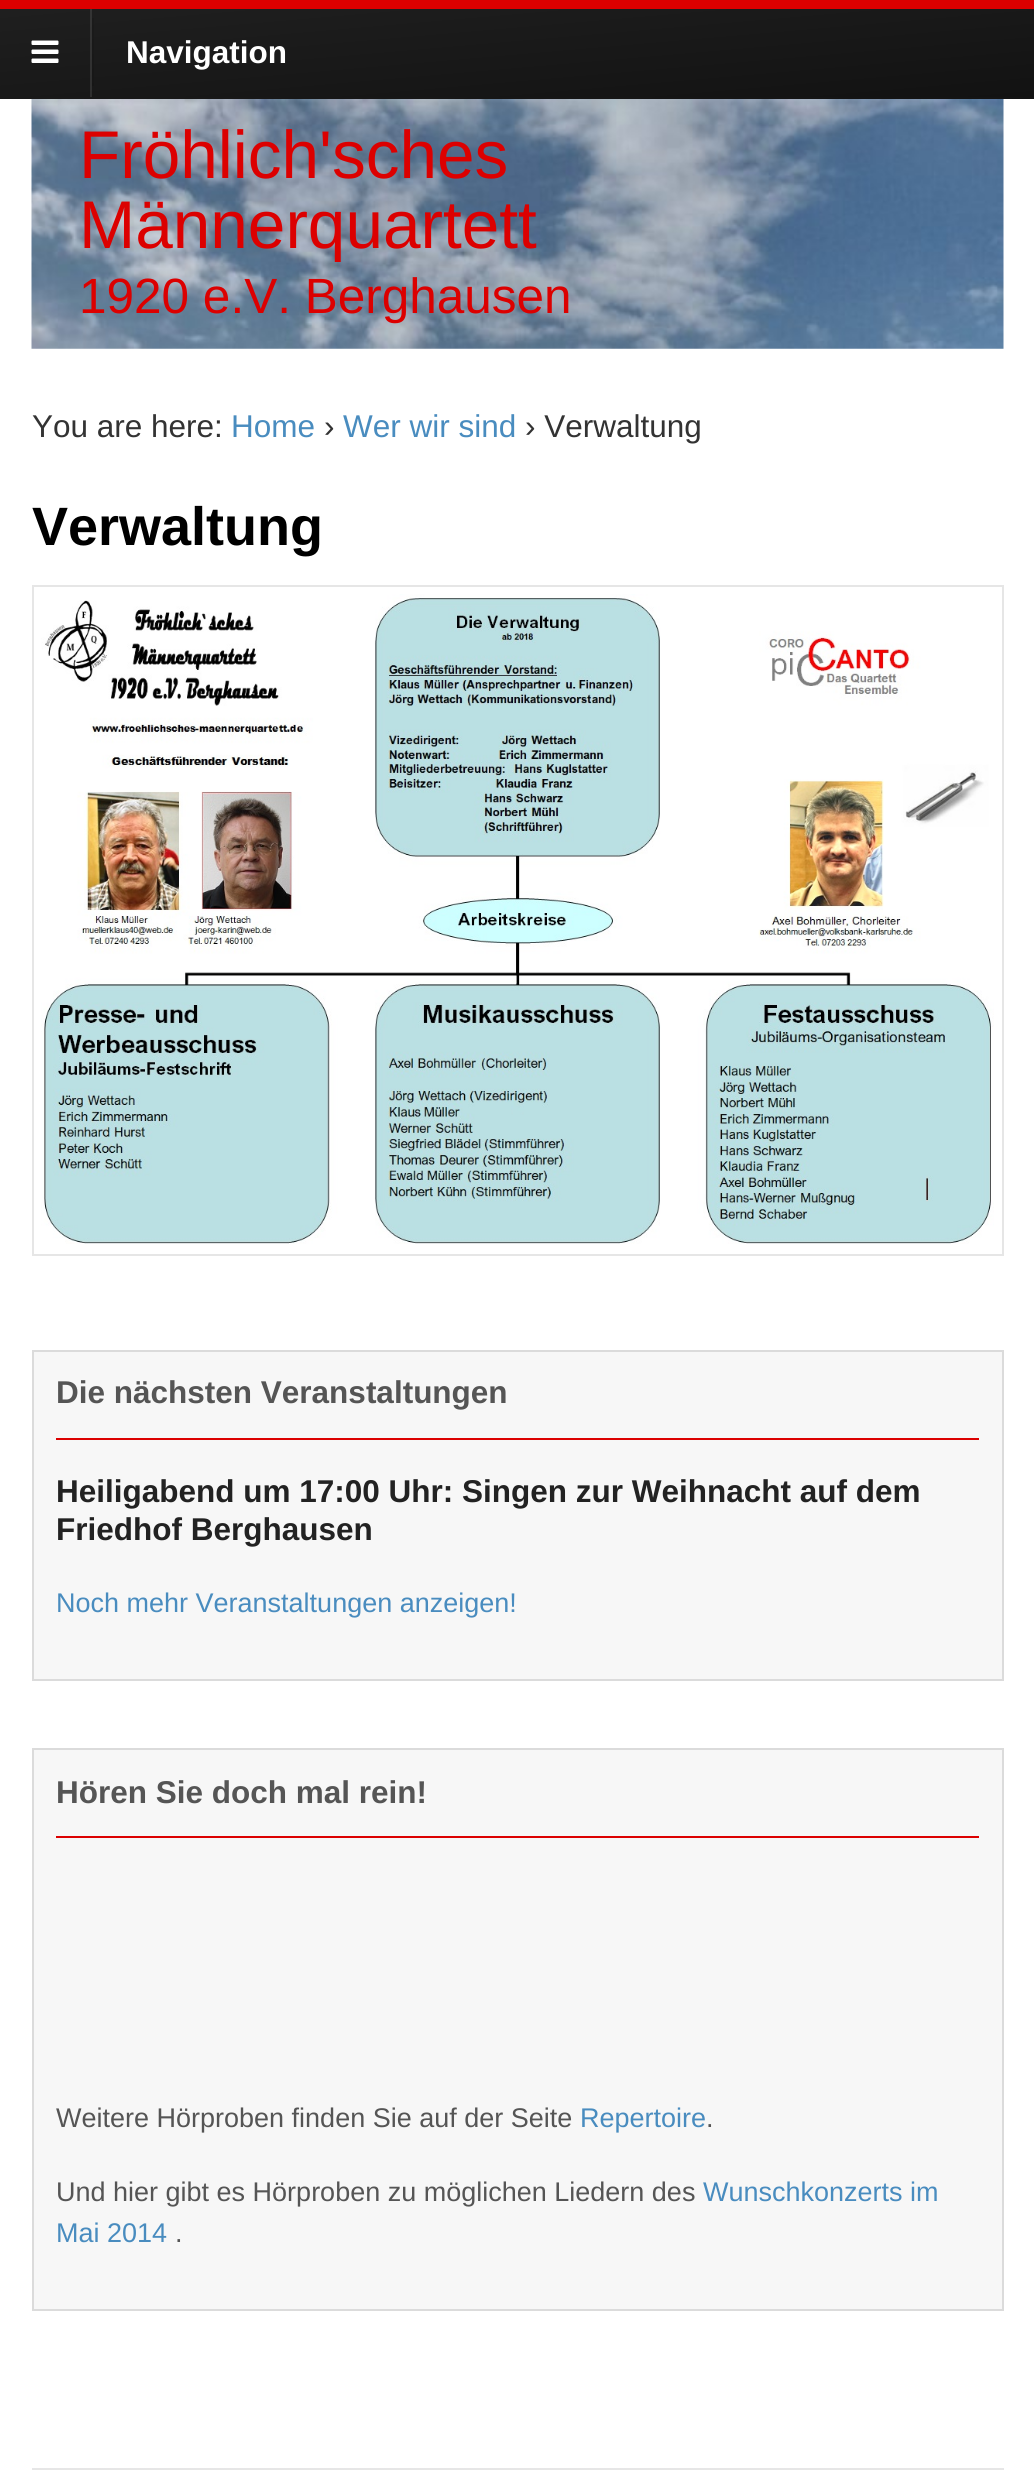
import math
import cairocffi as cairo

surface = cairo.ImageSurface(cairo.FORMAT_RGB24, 1034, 2474)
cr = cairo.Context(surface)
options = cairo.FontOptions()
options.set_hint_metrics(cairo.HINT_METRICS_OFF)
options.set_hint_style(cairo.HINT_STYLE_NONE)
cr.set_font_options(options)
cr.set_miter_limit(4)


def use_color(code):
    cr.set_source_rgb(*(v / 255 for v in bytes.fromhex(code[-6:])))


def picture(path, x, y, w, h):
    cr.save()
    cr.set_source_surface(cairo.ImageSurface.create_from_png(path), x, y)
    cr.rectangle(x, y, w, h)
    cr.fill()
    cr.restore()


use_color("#ffffff")
cr.paint()
use_color("#dc0000")
cr.rectangle(0, 0, 1034, 9)
cr.fill()
gradient = cairo.LinearGradient(510, -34, 525, 140)
gradient.add_color_stop_rgba(0, 0.122, 0.122, 0.122, 1)
gradient.add_color_stop_rgba(1, 0.071, 0.071, 0.071, 1)
cr.set_source(gradient)
cr.rectangle(0, 9, 1034, 88)
cr.fill()
gradient = cairo.LinearGradient(510, -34, 525, 140)
gradient.add_color_stop_rgba(0, 0.11, 0.11, 0.11, 1)
gradient.add_color_stop_rgba(1, 0.063, 0.063, 0.063, 1)
cr.set_source(gradient)
cr.rectangle(92, 18, 2, 68)
cr.fill()
gradient = cairo.LinearGradient(510, -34, 525, 140)
gradient.add_color_stop_rgba(0, 0.208, 0.208, 0.208, 1)
gradient.add_color_stop_rgba(1, 0.165, 0.165, 0.165, 1)
cr.set_source(gradient)
cr.rectangle(90, 9, 2, 88)
cr.fill()
gradient = cairo.LinearGradient(510, 54, 525, 228)
gradient.add_color_stop_rgba(0, 0.098, 0.098, 0.098, 1)
gradient.add_color_stop_rgba(1, 0.055, 0.055, 0.055, 1)
cr.set_source(gradient)
cr.rectangle(0, 97, 1034, 2)
cr.fill()
picture("img1.png", 31, 40, 28, 23)
cr.select_font_face("Liberation Sans", cairo.FONT_SLANT_NORMAL, cairo.FONT_WEIGHT_BOLD)
cr.set_font_size(31.5)
use_color("#ffffff")
cr.move_to(126, 63)
cr.show_text("Navigation")
picture("img2.png", 31, 99, 973, 250)
cr.select_font_face("Liberation Sans")
cr.set_font_size(67.5)
use_color("#dc0000")
cr.move_to(79, 178)
cr.show_text("Fröhlich'sches")
cr.move_to(79, 248)
cr.show_text("Männerquartett")
cr.set_font_size(49.5)
cr.move_to(79, 313)
cr.show_text("1920 e.V. Berghausen")
cr.set_font_size(31.5)
use_color("#333333")
cr.move_to(32, 437)
cr.show_text("You are here:")
use_color("#498cbf")
cr.move_to(231, 437)
cr.show_text("Home")
use_color("#333333")
cr.move_to(324, 437)
cr.show_text("›")
use_color("#498cbf")
cr.move_to(343, 437)
cr.show_text("Wer wir sind")
use_color("#333333")
cr.move_to(525, 437)
cr.show_text("› Verwaltung")
cr.select_font_face("Liberation Sans", cairo.FONT_SLANT_NORMAL, cairo.FONT_WEIGHT_BOLD)
cr.set_font_size(54)
use_color("#000000")
cr.move_to(32, 545)
cr.show_text("Verwaltung")
cr.rectangle(33, 586, 970, 669)
use_color("#e6e6e6")
cr.stroke()
picture("img3.png", 41, 594, 953, 650)
use_color("#f7f7f7")
cr.rectangle(33, 1351, 970, 329)
cr.fill_preserve()
use_color("#dbdbdb")
cr.stroke()
use_color("#dc0000")
cr.rectangle(56, 1438, 923, 2)
cr.fill()
cr.set_font_size(31.5)
use_color("#555555")
cr.move_to(56, 1403)
cr.show_text("Die nächsten Veranstaltungen")
use_color("#222222")
cr.move_to(56, 1502)
cr.show_text("Heiligabend um 17:00 Uhr: Singen zur Weihnacht auf dem")
cr.move_to(56, 1540)
cr.show_text("Friedhof Berghausen")
cr.select_font_face("Liberation Sans")
cr.set_font_size(27)
use_color("#498cbf")
cr.move_to(56, 1612)
cr.show_text("Noch mehr Veranstaltungen anzeigen!")
use_color("#f7f7f7")
cr.rectangle(33, 1749, 970, 561)
cr.fill_preserve()
use_color("#dbdbdb")
cr.stroke()
use_color("#dc0000")
cr.rectangle(56, 1836, 923, 2)
cr.fill()
cr.select_font_face("Liberation Sans", cairo.FONT_SLANT_NORMAL, cairo.FONT_WEIGHT_BOLD)
cr.set_font_size(31.5)
use_color("#555555")
cr.move_to(56, 1803)
cr.show_text("Hören Sie doch mal rein!")
cr.select_font_face("Liberation Sans")
cr.set_font_size(27)
cr.move_to(56, 2127)
cr.show_text("Weitere Hörproben finden Sie auf der Seite")
use_color("#498cbf")
cr.move_to(580, 2127)
cr.show_text("Repertoire")
use_color("#555555")
cr.move_to(706, 2127)
cr.show_text(".")
cr.move_to(56, 2201)
cr.show_text("Und hier gibt es Hörproben zu möglichen Liedern des")
use_color("#498cbf")
cr.move_to(703, 2201)
cr.show_text("Wunschkonzerts im")
cr.move_to(56, 2242)
cr.show_text("Mai 2014")
use_color("#555555")
cr.move_to(175, 2242)
cr.show_text(".")
use_color("#e6e6e6")
cr.rectangle(32, 2468, 972, 2)
cr.fill()
surface.write_to_png("result.png")
